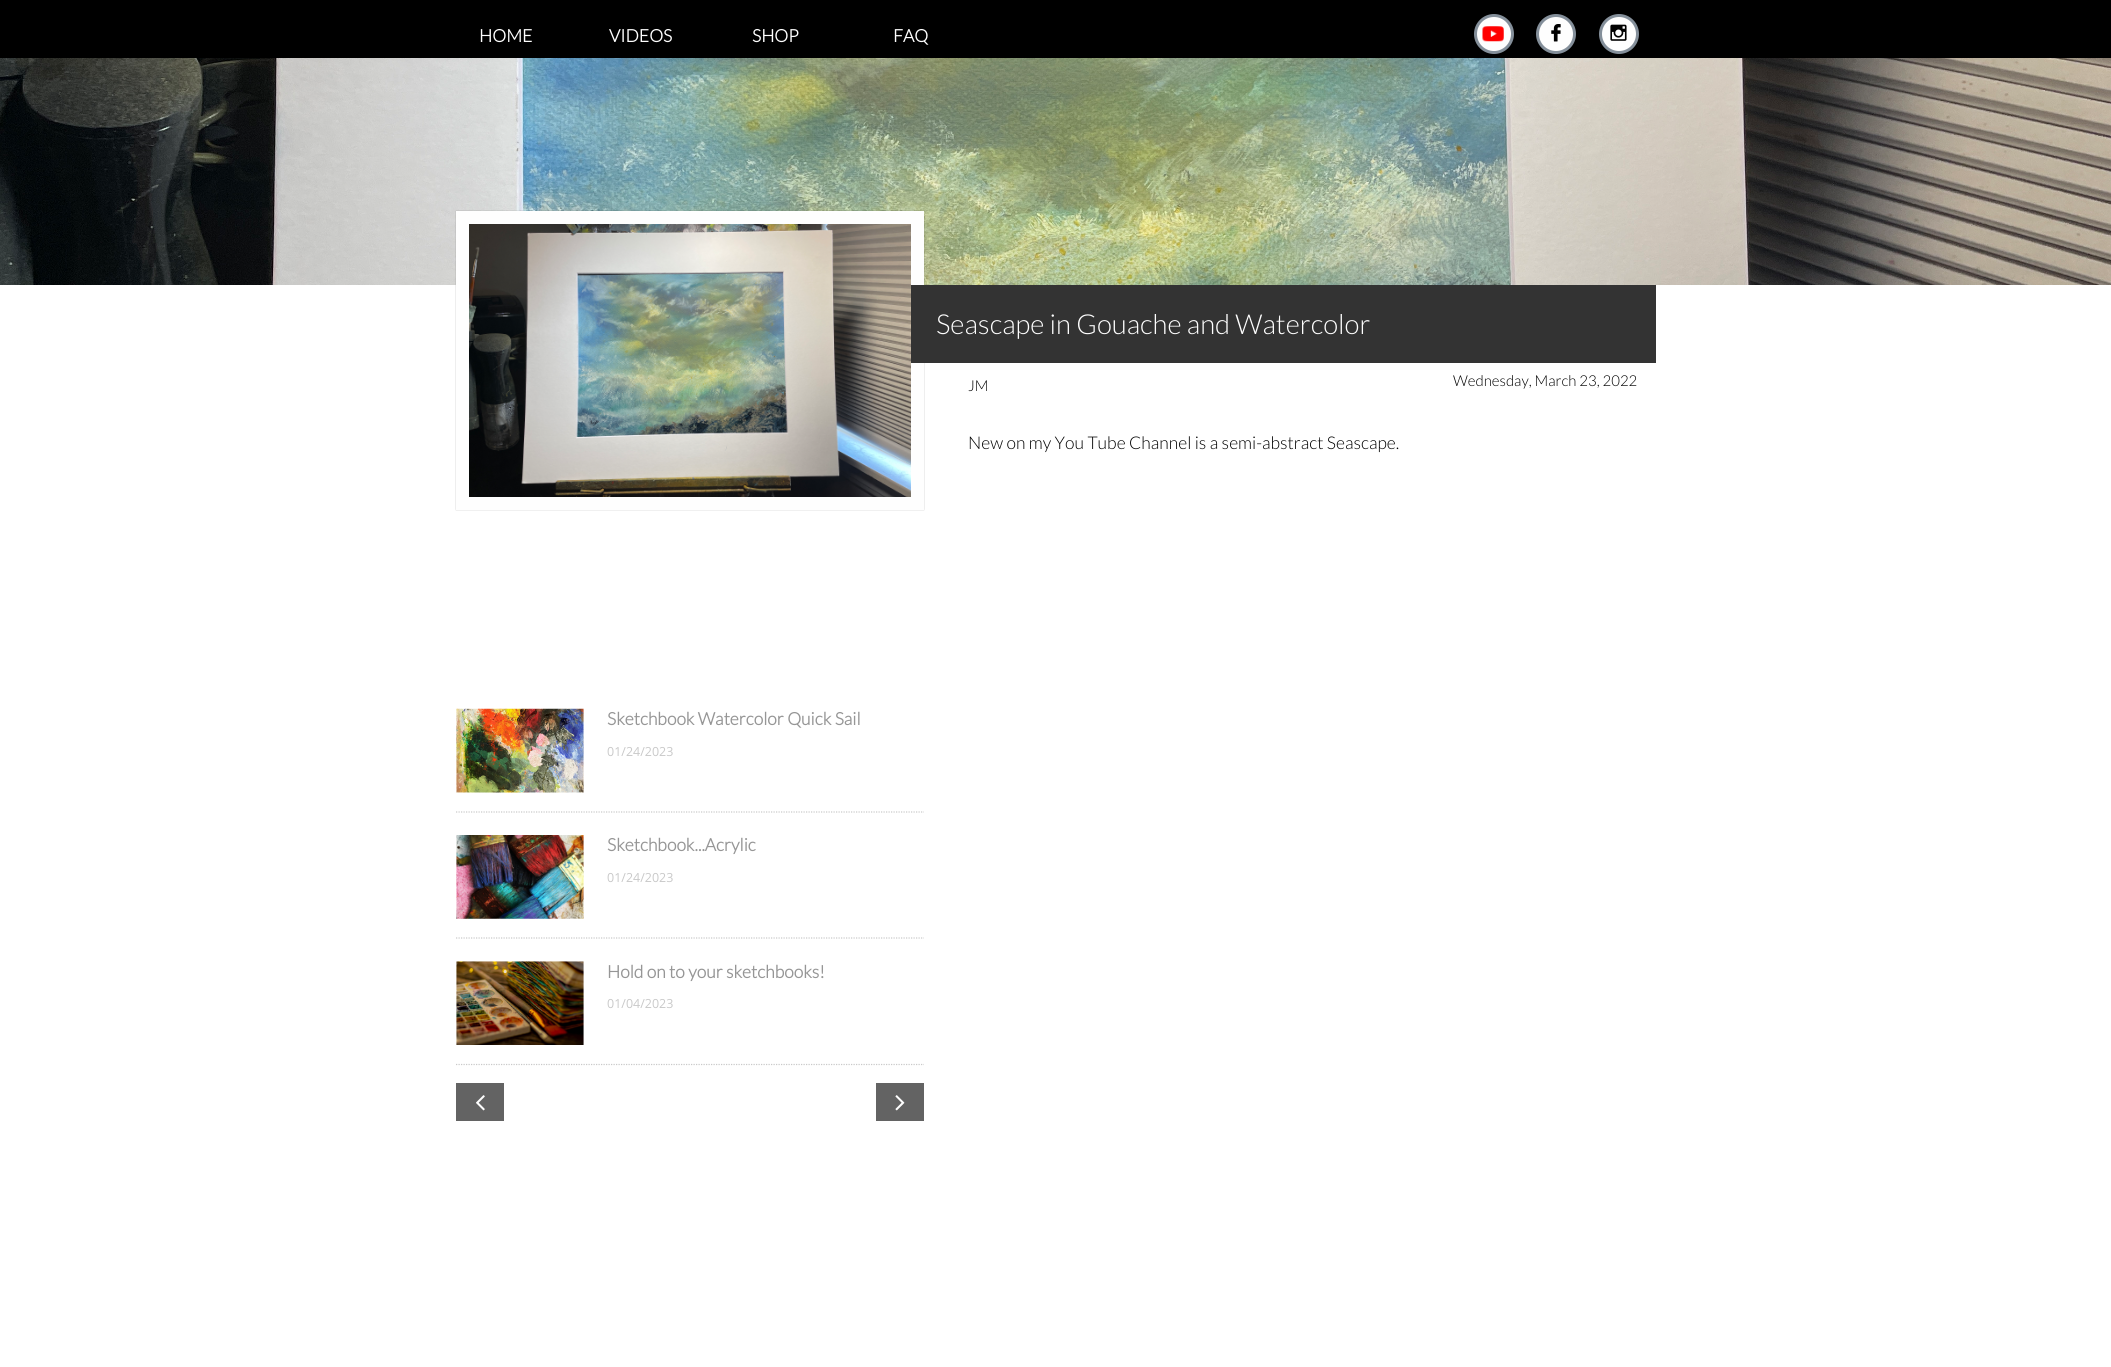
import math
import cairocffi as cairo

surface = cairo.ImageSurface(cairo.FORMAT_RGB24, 2111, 1367)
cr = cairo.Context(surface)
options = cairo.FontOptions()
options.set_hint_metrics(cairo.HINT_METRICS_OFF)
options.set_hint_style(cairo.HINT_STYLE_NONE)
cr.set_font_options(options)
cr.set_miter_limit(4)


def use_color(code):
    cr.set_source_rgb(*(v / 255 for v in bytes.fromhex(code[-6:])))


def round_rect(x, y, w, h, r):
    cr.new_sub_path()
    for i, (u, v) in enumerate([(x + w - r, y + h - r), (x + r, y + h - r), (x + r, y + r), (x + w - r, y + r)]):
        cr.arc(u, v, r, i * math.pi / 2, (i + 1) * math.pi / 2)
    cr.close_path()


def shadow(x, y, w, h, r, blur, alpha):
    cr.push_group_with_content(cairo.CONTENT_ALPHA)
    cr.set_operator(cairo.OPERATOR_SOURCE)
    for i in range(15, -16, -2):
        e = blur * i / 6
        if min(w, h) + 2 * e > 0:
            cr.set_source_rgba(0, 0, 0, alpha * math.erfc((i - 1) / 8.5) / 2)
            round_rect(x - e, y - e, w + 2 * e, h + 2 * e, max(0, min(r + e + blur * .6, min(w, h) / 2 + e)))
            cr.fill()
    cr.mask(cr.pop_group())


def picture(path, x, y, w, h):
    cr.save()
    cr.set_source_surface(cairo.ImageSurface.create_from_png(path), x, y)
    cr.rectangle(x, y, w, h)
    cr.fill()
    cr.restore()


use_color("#ffffff")
cr.paint()
use_color("#000000")
cr.rectangle(0, 0, 2111, 58)
cr.fill()
cr.select_font_face("Lato", cairo.FONT_SLANT_NORMAL, cairo.FONT_WEIGHT_BOLD)
cr.set_font_size(17.5)
use_color("#fefefe")
cr.move_to(479, 42)
cr.show_text("HOME")
cr.move_to(609, 42)
cr.show_text("VIDEOS")
cr.move_to(752, 42)
cr.show_text("SHOP")
cr.move_to(893, 42)
cr.show_text("FAQ")
cr.new_path()
cr.arc(1494, 34, 18.5, 0, 2 * math.pi)
cr.fill_preserve()
use_color("#848f9a")
cr.set_line_width(3)
cr.stroke()
picture("img1.png", 1482, 26, 22, 16)
use_color("#fefefe")
cr.arc(1556, 34, 18.5, 0, 2 * math.pi)
cr.fill_preserve()
use_color("#848f9a")
cr.stroke()
picture("img2.png", 1551, 24, 10, 18)
use_color("#fefefe")
cr.arc(1619, 34, 18.5, 0, 2 * math.pi)
cr.fill_preserve()
use_color("#848f9a")
cr.stroke()
picture("img3.png", 1610, 24, 17, 17)
picture("img4.png", 0, 58, 2111, 227)
picture("img5.png", 469, 224, 442, 273)
cr.save()
cr.set_fill_rule(cairo.FILL_RULE_EVEN_ODD)
cr.new_path()
cr.move_to(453, 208)
cr.line_to(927, 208)
cr.line_to(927, 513)
cr.line_to(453, 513)
cr.close_path()
cr.move_to(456, 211)
cr.line_to(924, 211)
cr.line_to(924, 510)
cr.line_to(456, 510)
cr.close_path()
cr.clip()
use_color("#000000")
shadow(456, 211, 468, 299, 0, 0.5, 0.25)
cr.restore()
cr.rectangle(462.5, 217.5, 455, 286)
use_color("#fefefe")
cr.set_line_width(13)
cr.stroke()
use_color("#333333")
cr.rectangle(911, 285, 745, 78)
cr.fill()
cr.select_font_face("Lato Light")
cr.set_font_size(27.5)
use_color("#fefefe")
cr.move_to(936, 334)
cr.show_text("Seascape in Gouache and Watercolor")
cr.set_font_size(15)
use_color("#000000")
cr.move_to(968, 391)
cr.show_text("JM")
cr.move_to(1453, 386)
cr.show_text("Wednesday, March 23, 2022")
cr.set_font_size(17.5)
cr.move_to(968, 449)
cr.show_text("New on my You Tube Channel is a semi-abstract Seascape.")
cr.new_path()
cr.move_to(456, 812)
cr.line_to(924, 812)
use_color("#c9c9c9")
cr.set_line_width(1.2)
cr.set_dash([1.25, 1.25])
cr.stroke()
picture("img6.png", 456, 708, 128, 85)
cr.select_font_face("Lato", cairo.FONT_SLANT_NORMAL, cairo.FONT_WEIGHT_BOLD)
use_color("#969696")
cr.move_to(607, 725)
cr.show_text("Sketchbook Watercolor Quick Sail")
cr.select_font_face("Open Sans")
cr.set_font_size(12.5)
use_color("#c9c9c9")
cr.move_to(607, 756)
cr.show_text("01/24/2023")
cr.new_path()
cr.move_to(456, 938)
cr.line_to(924, 938)
cr.stroke()
picture("img7.png", 456, 835, 128, 84)
cr.select_font_face("Lato", cairo.FONT_SLANT_NORMAL, cairo.FONT_WEIGHT_BOLD)
cr.set_font_size(17.5)
use_color("#969696")
cr.move_to(607, 851)
cr.show_text("Sketchbook...Acrylic")
cr.select_font_face("Open Sans")
cr.set_font_size(12.5)
use_color("#c9c9c9")
cr.move_to(607, 882)
cr.show_text("01/24/2023")
cr.new_path()
cr.move_to(456, 1064.5)
cr.line_to(924, 1064.5)
cr.stroke()
picture("img8.png", 456, 961, 128, 84)
cr.select_font_face("Lato", cairo.FONT_SLANT_NORMAL, cairo.FONT_WEIGHT_BOLD)
cr.set_font_size(17.5)
use_color("#969696")
cr.move_to(607, 978)
cr.show_text("Hold on to your sketchbooks!")
cr.select_font_face("Open Sans")
cr.set_font_size(12.5)
use_color("#c9c9c9")
cr.move_to(607, 1008)
cr.show_text("01/04/2023")
use_color("#636363")
cr.rectangle(456, 1083, 48, 38)
cr.fill()
picture("img9.png", 476, 1095, 9, 16)
cr.rectangle(876, 1083, 48, 38)
cr.fill()
picture("img10.png", 895, 1095, 10, 16)
surface.write_to_png("result.png")
